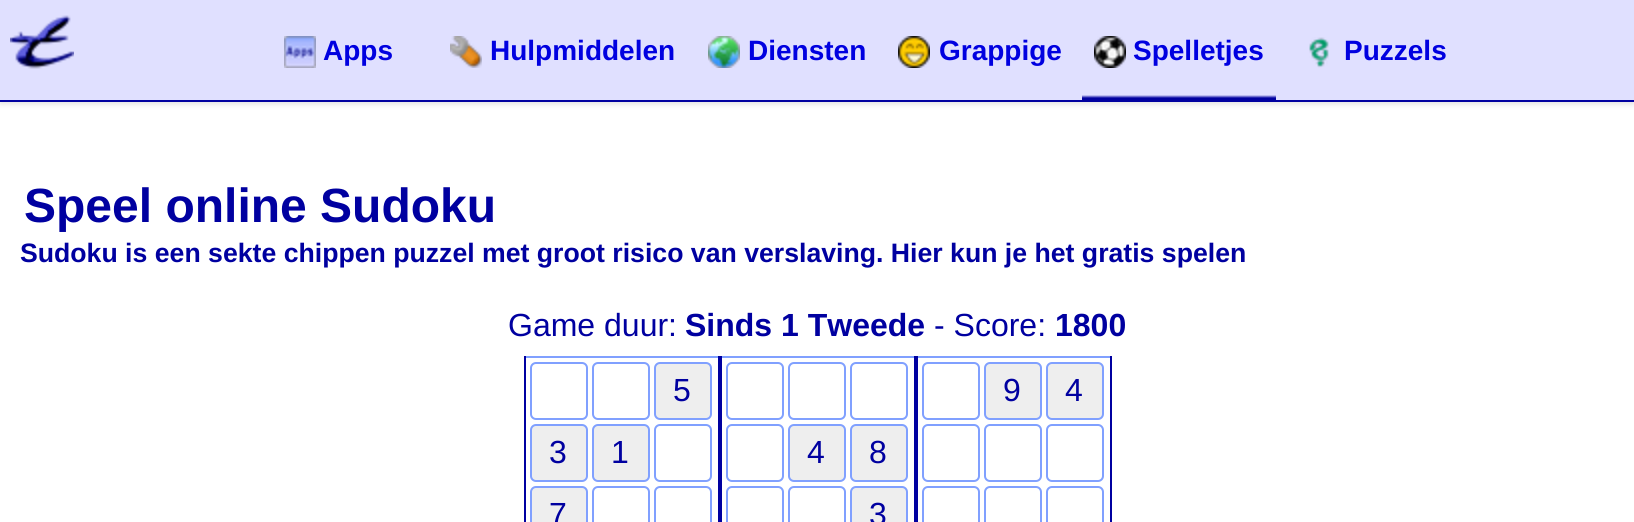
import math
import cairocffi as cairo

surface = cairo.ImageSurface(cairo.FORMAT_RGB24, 1634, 522)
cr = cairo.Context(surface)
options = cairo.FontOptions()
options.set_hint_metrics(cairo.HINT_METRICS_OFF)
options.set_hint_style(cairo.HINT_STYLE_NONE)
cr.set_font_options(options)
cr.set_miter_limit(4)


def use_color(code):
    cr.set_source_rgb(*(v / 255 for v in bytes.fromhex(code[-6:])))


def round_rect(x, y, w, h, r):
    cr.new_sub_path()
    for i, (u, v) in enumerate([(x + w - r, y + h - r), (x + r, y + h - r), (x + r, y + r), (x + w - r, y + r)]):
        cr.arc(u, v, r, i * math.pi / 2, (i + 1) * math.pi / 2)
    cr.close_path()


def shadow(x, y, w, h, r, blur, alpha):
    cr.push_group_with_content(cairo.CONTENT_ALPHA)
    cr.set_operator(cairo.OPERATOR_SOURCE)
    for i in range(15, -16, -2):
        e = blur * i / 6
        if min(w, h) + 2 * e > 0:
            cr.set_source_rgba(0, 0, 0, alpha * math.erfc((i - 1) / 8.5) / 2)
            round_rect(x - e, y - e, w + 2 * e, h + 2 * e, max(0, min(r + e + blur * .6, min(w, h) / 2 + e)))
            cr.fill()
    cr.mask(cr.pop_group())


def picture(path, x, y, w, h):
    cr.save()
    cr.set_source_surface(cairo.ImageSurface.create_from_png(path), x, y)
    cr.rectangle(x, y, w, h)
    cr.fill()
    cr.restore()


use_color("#ffffff")
cr.paint()
use_color("#e0e0e0")
shadow(0, 2, 1634, 102, 0, 3, 1)
use_color("#e0e0ff")
cr.rectangle(0, 0, 1634, 100)
cr.fill()
use_color("#0000a0")
cr.rectangle(0, 100, 1634, 2)
cr.fill()
picture("img1.png", 10, 15, 64, 54)
picture("img2.png", 284, 36, 32, 32)
cr.select_font_face("Liberation Sans", cairo.FONT_SLANT_NORMAL, cairo.FONT_WEIGHT_BOLD)
cr.set_font_size(28)
use_color("#0000e0")
cr.move_to(323, 60)
cr.show_text("Apps")
picture("img3.png", 450, 36, 32, 32)
cr.move_to(490, 60)
cr.show_text("Hulpmiddelen")
picture("img4.png", 708, 36, 32, 32)
cr.move_to(748, 60)
cr.show_text("Diensten")
picture("img5.png", 898, 36, 32, 32)
cr.move_to(939, 60)
cr.show_text("Grappige")
gradient = cairo.LinearGradient(1179, 0, 1179, 100)
gradient.add_color_stop_rgba(0.95, 0.878, 0.878, 1, 1)
gradient.add_color_stop_rgba(0.98, 0, 0, 0.627, 1)
cr.set_source(gradient)
cr.rectangle(1082, 95, 194, 5)
cr.fill()
picture("img6.png", 1094, 36, 32, 32)
use_color("#0000e0")
cr.move_to(1133, 60)
cr.show_text("Spelletjes")
picture("img7.png", 1309, 37, 20, 31)
cr.move_to(1344, 60)
cr.show_text("Puzzels")
cr.set_font_size(48)
use_color("#0000a0")
cr.move_to(24, 222)
cr.show_text("Speel online Sudoku")
cr.set_font_size(26.65)
cr.move_to(20, 262)
cr.show_text("Sudoku is een sekte chippen puzzel met groot risico van verslaving. Hier kun je het gratis spelen")
cr.select_font_face("Liberation Sans")
cr.set_font_size(32)
cr.move_to(508, 336)
cr.show_text("Game duur:")
cr.select_font_face("Liberation Sans", cairo.FONT_SLANT_NORMAL, cairo.FONT_WEIGHT_BOLD)
cr.move_to(685, 336)
cr.show_text("Sinds 1 Tweede")
cr.select_font_face("Liberation Sans")
cr.move_to(934, 336)
cr.show_text("- Score:")
cr.select_font_face("Liberation Sans", cairo.FONT_SLANT_NORMAL, cairo.FONT_WEIGHT_BOLD)
cr.move_to(1055, 336)
cr.show_text("1800")
use_color("#80a0ff")
cr.rectangle(524, 356, 588, 2)
cr.fill()
use_color("#0000a0")
cr.rectangle(718, 356, 4, 166)
cr.fill()
cr.rectangle(524, 356, 2, 166)
cr.fill()
round_rect(531, 363, 56, 56, 5)
use_color("#80a0ff")
cr.stroke()
round_rect(593, 363, 56, 56, 5)
cr.stroke()
use_color("#eeeeee")
round_rect(655, 363, 56, 56, 5)
cr.fill_preserve()
use_color("#80a0ff")
cr.stroke()
cr.select_font_face("Liberation Sans")
use_color("#0000a0")
cr.move_to(673, 401)
cr.show_text("5")
use_color("#eeeeee")
round_rect(531, 425, 56, 56, 5)
cr.fill_preserve()
use_color("#80a0ff")
cr.stroke()
use_color("#0000a0")
cr.move_to(549, 463)
cr.show_text("3")
use_color("#eeeeee")
round_rect(593, 425, 56, 56, 5)
cr.fill_preserve()
use_color("#80a0ff")
cr.stroke()
use_color("#0000a0")
cr.move_to(611, 463)
cr.show_text("1")
round_rect(655, 425, 56, 56, 5)
use_color("#80a0ff")
cr.stroke()
use_color("#eeeeee")
round_rect(531, 487, 56, 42, 5)
cr.fill_preserve()
use_color("#80a0ff")
cr.stroke()
use_color("#0000a0")
cr.move_to(549, 525)
cr.show_text("7")
round_rect(593, 487, 56, 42, 5)
use_color("#80a0ff")
cr.stroke()
round_rect(655, 487, 56, 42, 5)
cr.stroke()
use_color("#0000a0")
cr.rectangle(914, 356, 4, 166)
cr.fill()
round_rect(727, 363, 56, 56, 5)
use_color("#80a0ff")
cr.stroke()
round_rect(789, 363, 56, 56, 5)
cr.stroke()
round_rect(851, 363, 56, 56, 5)
cr.stroke()
round_rect(727, 425, 56, 56, 5)
cr.stroke()
use_color("#eeeeee")
round_rect(789, 425, 56, 56, 5)
cr.fill_preserve()
use_color("#80a0ff")
cr.stroke()
use_color("#0000a0")
cr.move_to(807, 463)
cr.show_text("4")
use_color("#eeeeee")
round_rect(851, 425, 56, 56, 5)
cr.fill_preserve()
use_color("#80a0ff")
cr.stroke()
use_color("#0000a0")
cr.move_to(869, 463)
cr.show_text("8")
round_rect(727, 487, 56, 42, 5)
use_color("#80a0ff")
cr.stroke()
round_rect(789, 487, 56, 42, 5)
cr.stroke()
use_color("#eeeeee")
round_rect(851, 487, 56, 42, 5)
cr.fill_preserve()
use_color("#80a0ff")
cr.stroke()
use_color("#0000a0")
cr.move_to(869, 525)
cr.show_text("3")
cr.rectangle(1110, 356, 2, 166)
cr.fill()
round_rect(923, 363, 56, 56, 5)
use_color("#80a0ff")
cr.stroke()
use_color("#eeeeee")
round_rect(985, 363, 56, 56, 5)
cr.fill_preserve()
use_color("#80a0ff")
cr.stroke()
use_color("#0000a0")
cr.move_to(1003, 401)
cr.show_text("9")
use_color("#eeeeee")
round_rect(1047, 363, 56, 56, 5)
cr.fill_preserve()
use_color("#80a0ff")
cr.stroke()
use_color("#0000a0")
cr.move_to(1065, 401)
cr.show_text("4")
round_rect(923, 425, 56, 56, 5)
use_color("#80a0ff")
cr.stroke()
round_rect(985, 425, 56, 56, 5)
cr.stroke()
round_rect(1047, 425, 56, 56, 5)
cr.stroke()
round_rect(923, 487, 56, 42, 5)
cr.stroke()
round_rect(985, 487, 56, 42, 5)
cr.stroke()
round_rect(1047, 487, 56, 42, 5)
cr.stroke()
surface.write_to_png("result.png")
